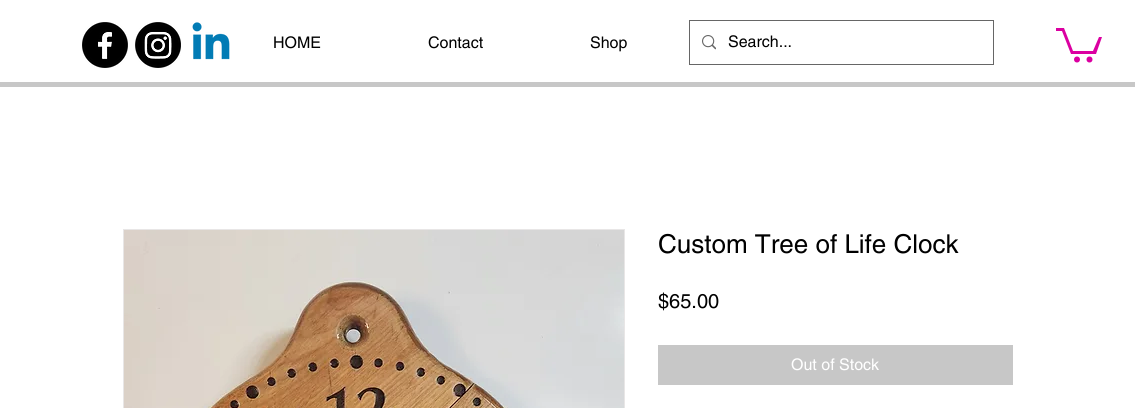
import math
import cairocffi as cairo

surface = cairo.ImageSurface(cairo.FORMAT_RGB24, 1135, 408)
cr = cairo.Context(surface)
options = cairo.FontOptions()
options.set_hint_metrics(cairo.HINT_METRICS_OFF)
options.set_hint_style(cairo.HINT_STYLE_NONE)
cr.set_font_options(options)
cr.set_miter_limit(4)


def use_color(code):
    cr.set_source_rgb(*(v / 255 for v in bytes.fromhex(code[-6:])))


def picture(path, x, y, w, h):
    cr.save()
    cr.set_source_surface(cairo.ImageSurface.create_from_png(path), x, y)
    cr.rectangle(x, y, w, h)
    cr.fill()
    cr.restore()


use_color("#ffffff")
cr.paint()
picture("img1.png", 82, 22, 46, 46)
picture("img2.png", 135, 22, 46, 46)
picture("img3.png", 192, 22, 38, 38)
cr.select_font_face("helvetica")
cr.set_font_size(16)
use_color("#000000")
cr.move_to(273, 48)
cr.show_text("HOME")
cr.move_to(428, 48)
cr.show_text("Contact")
cr.move_to(590, 48)
cr.show_text("Shop")
cr.rectangle(689.5, 20.5, 304, 44)
use_color("#666666")
cr.set_line_width(1)
cr.stroke()
picture("img4.png", 702, 35, 14, 15)
use_color("#000000")
cr.move_to(728, 47)
cr.show_text("Search...")
use_color("#db00a1")
cr.new_path()
cr.move_to(1102, 37)
cr.line_to(1096, 54)
cr.line_to(1071, 54)
cr.line_to(1062, 31)
cr.line_to(1056, 31)
cr.line_to(1056, 28)
cr.line_to(1064, 28)
cr.line_to(1073, 51)
cr.line_to(1093, 51)
cr.line_to(1099, 37)
cr.fill()
cr.arc(1089.5, 59.5, 3, 0, 2 * math.pi)
cr.fill()
cr.arc(1077, 59.5, 3, 0, 2 * math.pi)
cr.fill()
use_color("#c7c7c7")
cr.rectangle(0, 82, 1135, 5)
cr.fill()
cr.rectangle(123.5, 229.5, 501, 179)
use_color("#e8e6e6")
cr.stroke()
picture("img5.png", 124, 230, 500, 178)
cr.set_font_size(26)
use_color("#000000")
cr.move_to(658, 253)
cr.show_text("Custom Tree of Life Clock")
cr.set_font_size(20)
cr.move_to(658, 308)
cr.show_text("$65.00")
use_color("#c7c7c7")
cr.rectangle(658, 345, 355, 40)
cr.fill()
cr.set_font_size(16)
use_color("#ffffff")
cr.move_to(791, 370)
cr.show_text("Out of Stock")
surface.write_to_png("result.png")
